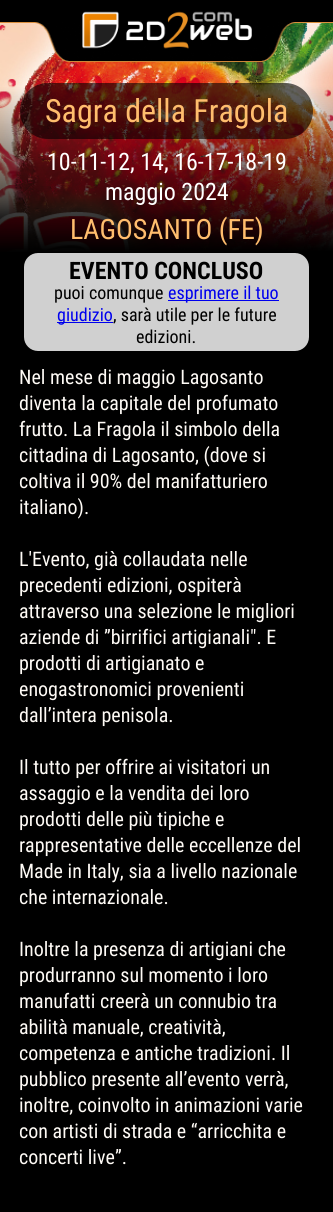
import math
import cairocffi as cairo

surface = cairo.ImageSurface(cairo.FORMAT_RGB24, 333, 1212)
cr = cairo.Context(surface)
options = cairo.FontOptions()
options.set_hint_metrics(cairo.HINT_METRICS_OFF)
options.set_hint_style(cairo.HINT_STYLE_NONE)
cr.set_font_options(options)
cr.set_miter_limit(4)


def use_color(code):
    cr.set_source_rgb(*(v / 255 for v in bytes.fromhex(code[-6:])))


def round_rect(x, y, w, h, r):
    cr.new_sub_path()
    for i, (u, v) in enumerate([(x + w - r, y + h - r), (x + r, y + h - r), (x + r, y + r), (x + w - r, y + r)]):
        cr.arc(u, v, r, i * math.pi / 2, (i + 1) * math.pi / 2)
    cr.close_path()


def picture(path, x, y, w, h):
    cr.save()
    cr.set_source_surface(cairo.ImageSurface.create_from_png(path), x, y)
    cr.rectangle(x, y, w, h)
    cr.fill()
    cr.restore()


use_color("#000000")
cr.paint()
use_color("#db8e3c")
cr.rectangle(0, 22, 333, 1)
cr.fill()
picture("img3.png", 0, 23, 333, 229)
picture("img2.png", 35, 22, 260, 40)
picture("img1.png", 82, 11, 170, 38)
cr.set_source_rgba(0, 0, 0, 0.6)
round_rect(20, 83, 293, 56, 28)
cr.fill()
cr.select_font_face("Roboto Condensed")
cr.set_font_size(32)
use_color("#ffbd6d")
cr.move_to(45, 122)
cr.show_text("Sagra della Fragola")
cr.set_font_size(24)
use_color("#ffffff")
cr.move_to(47, 170)
cr.show_text("10-11-12, 14, 16-17-18-19")
cr.move_to(105, 200)
cr.show_text("maggio 2024")
cr.set_font_size(28)
use_color("#ffbd6d")
cr.move_to(70, 239)
cr.show_text("LAGOSANTO (FE)")
use_color("#d0d0d0")
round_rect(24, 253, 285, 98, 14)
cr.fill()
cr.select_font_face("Roboto Condensed", cairo.FONT_SLANT_NORMAL, cairo.FONT_WEIGHT_BOLD)
cr.set_font_size(24)
use_color("#000000")
cr.move_to(69, 279)
cr.show_text("EVENTO CONCLUSO")
cr.select_font_face("Roboto Condensed")
cr.set_font_size(18)
cr.move_to(54, 299)
cr.show_text("puoi comunque")
use_color("#0000ee")
cr.rectangle(168, 300, 111, 1)
cr.fill()
cr.move_to(168, 299)
cr.show_text("esprimere il tuo")
cr.rectangle(57, 322, 56, 1)
cr.fill()
cr.move_to(57, 321)
cr.show_text("giudizio")
use_color("#000000")
cr.move_to(113, 321)
cr.show_text(", sarà utile per le future")
cr.move_to(136, 343)
cr.show_text("edizioni.")
cr.set_font_size(20)
use_color("#fffbf6")
cr.move_to(19, 384)
cr.show_text("Nel mese di maggio Lagosanto")
cr.move_to(19, 410)
cr.show_text("diventa la capitale del profumato")
cr.move_to(19, 436)
cr.show_text("frutto. La Fragola il simbolo della")
cr.move_to(19, 462)
cr.show_text("cittadina di Lagosanto, (dove si")
cr.move_to(19, 488)
cr.show_text("coltiva il 90% del manifatturiero")
cr.move_to(19, 514)
cr.show_text("italiano).")
cr.move_to(19, 566)
cr.show_text("L'Evento, già collaudata nelle")
cr.move_to(19, 592)
cr.show_text("precedenti edizioni, ospiterà")
cr.move_to(19, 618)
cr.show_text("attraverso una selezione le migliori")
cr.move_to(19, 644)
cr.show_text("aziende di ”birrifici artigianali\". E")
cr.move_to(19, 670)
cr.show_text("prodotti di artigianato e")
cr.move_to(19, 696)
cr.show_text("enogastronomici provenienti")
cr.move_to(19, 722)
cr.show_text("dall’intera penisola.")
cr.move_to(19, 774)
cr.show_text("Il tutto per offrire ai visitatori un")
cr.move_to(19, 800)
cr.show_text("assaggio e la vendita dei loro")
cr.move_to(19, 826)
cr.show_text("prodotti delle più tipiche e")
cr.move_to(19, 852)
cr.show_text("rappresentative delle eccellenze del")
cr.move_to(19, 878)
cr.show_text("Made in Italy, sia a livello nazionale")
cr.move_to(19, 904)
cr.show_text("che internazionale.")
cr.move_to(19, 956)
cr.show_text("Inoltre la presenza di artigiani che")
cr.move_to(19, 982)
cr.show_text("produrranno sul momento i loro")
cr.move_to(19, 1008)
cr.show_text("manufatti creerà un connubio tra")
cr.move_to(19, 1034)
cr.show_text("abilità manuale, creatività,")
cr.move_to(19, 1060)
cr.show_text("competenza e antiche tradizioni. Il")
cr.move_to(19, 1086)
cr.show_text("pubblico presente all’evento verrà,")
cr.move_to(19, 1112)
cr.show_text("inoltre, coinvolto in animazioni varie")
cr.move_to(19, 1138)
cr.show_text("con artisti di strada e “arricchita e")
cr.move_to(19, 1164)
cr.show_text("concerti live”.")
surface.write_to_png("result.png")
